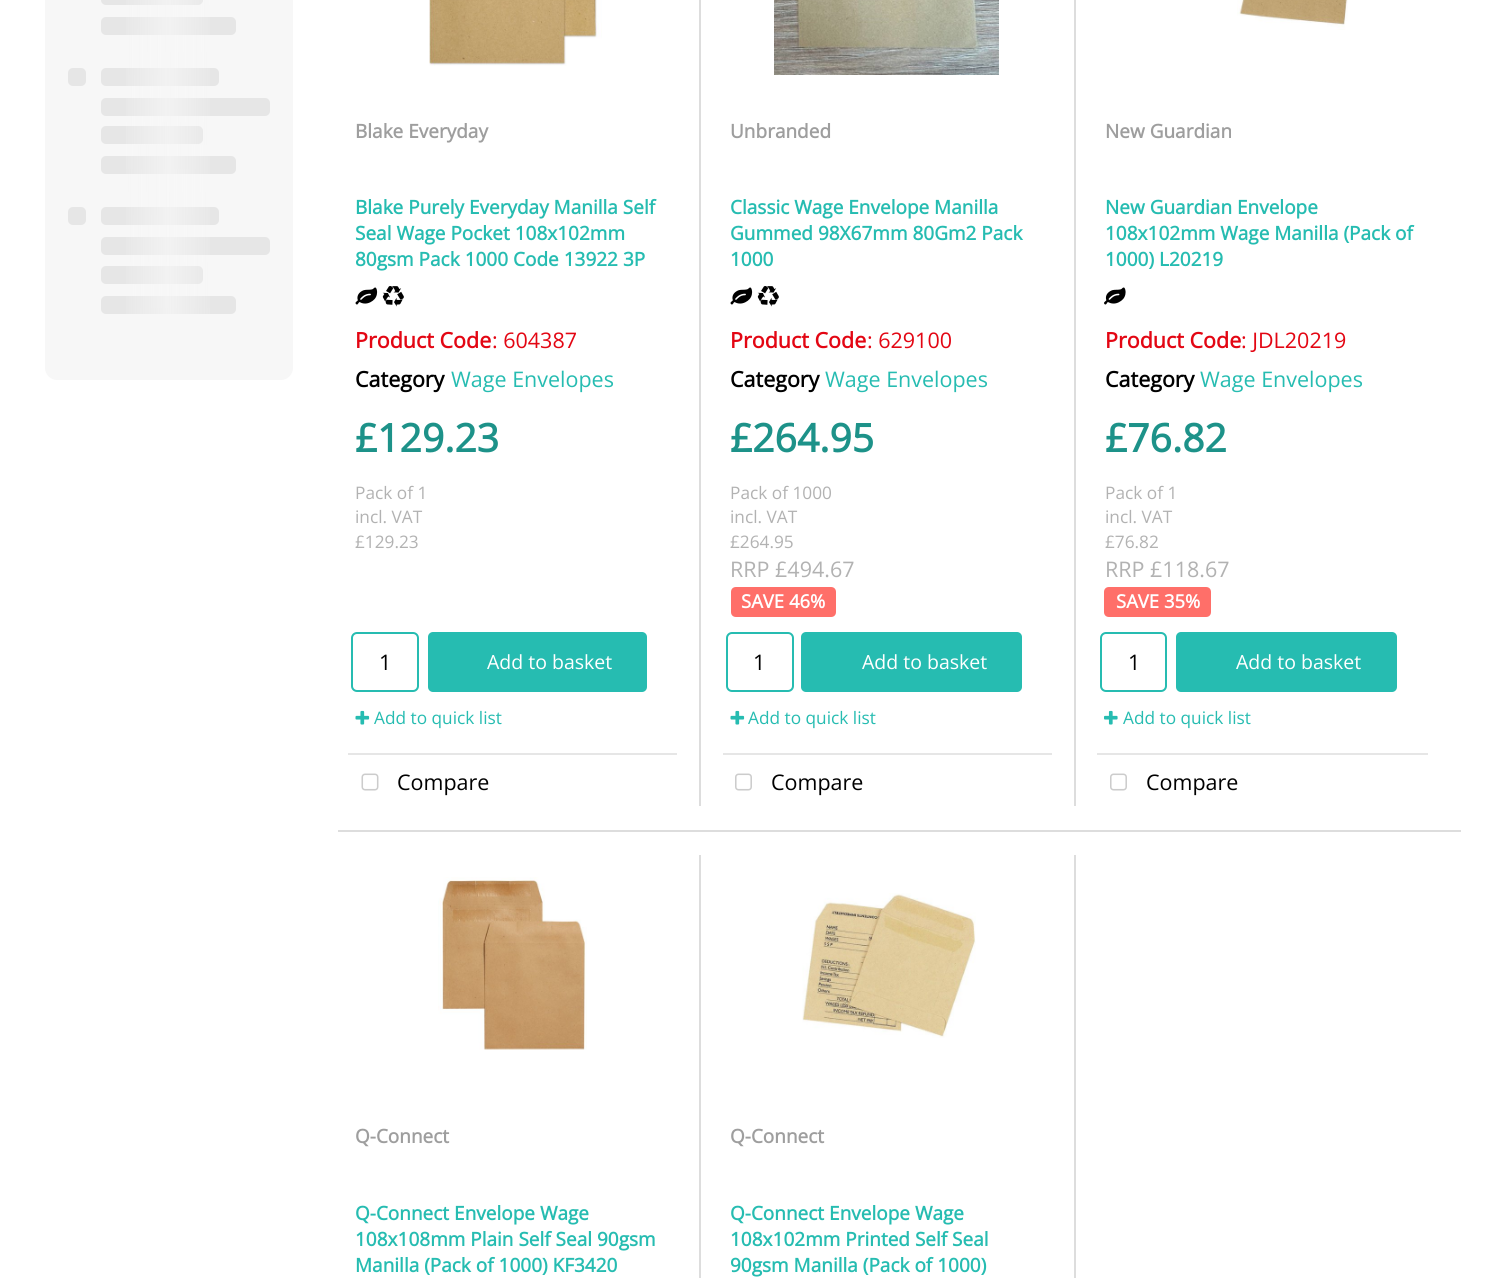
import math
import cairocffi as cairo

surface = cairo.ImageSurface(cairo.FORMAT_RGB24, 1506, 1278)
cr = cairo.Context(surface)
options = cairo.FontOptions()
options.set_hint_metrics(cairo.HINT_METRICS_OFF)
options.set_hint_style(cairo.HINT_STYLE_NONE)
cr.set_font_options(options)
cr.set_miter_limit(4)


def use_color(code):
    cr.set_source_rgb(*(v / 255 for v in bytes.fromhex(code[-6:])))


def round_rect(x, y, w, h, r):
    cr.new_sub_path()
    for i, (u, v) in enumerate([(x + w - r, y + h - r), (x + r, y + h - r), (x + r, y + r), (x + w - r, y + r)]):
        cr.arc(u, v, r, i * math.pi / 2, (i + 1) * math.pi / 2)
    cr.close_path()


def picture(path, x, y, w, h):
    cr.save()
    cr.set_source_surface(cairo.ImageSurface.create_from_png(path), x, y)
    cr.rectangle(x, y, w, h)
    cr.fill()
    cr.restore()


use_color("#ffffff")
cr.paint()
use_color("#f7f7f7")
cr.new_path()
cr.move_to(45, -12)
cr.line_to(293, -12)
cr.line_to(293, 368)
cr.curve_to(293, 374.5, 287.5, 380, 281, 380)
cr.line_to(57, 380)
cr.curve_to(50.5, 380, 45, 374.5, 45, 368)
cr.close_path()
cr.fill()
use_color("#e6e6e6")
round_rect(101, -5, 102, 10, 5)
cr.fill()
round_rect(101, 17, 135, 18, 5)
cr.fill()
round_rect(101, 68, 118, 18, 5)
cr.fill()
round_rect(68, 68, 18, 18, 5)
cr.fill()
round_rect(101, 98, 169, 18, 5)
cr.fill()
round_rect(101, 126, 102, 18, 5)
cr.fill()
round_rect(101, 156, 135, 18, 5)
cr.fill()
round_rect(101, 207, 118, 18, 5)
cr.fill()
round_rect(68, 207, 18, 18, 5)
cr.fill()
round_rect(101, 237, 169, 18, 5)
cr.fill()
round_rect(101, 266, 102, 18, 5)
cr.fill()
round_rect(101, 296, 135, 18, 5)
cr.fill()
gradient = cairo.LinearGradient(-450, 86, 786, 85)
gradient.add_color_stop_rgba(0.46, 0.969, 0.969, 0.969, 0)
gradient.add_color_stop_rgba(0.5, 0.969, 0.969, 0.969, 0.7)
gradient.add_color_stop_rgba(0.54, 0.969, 0.969, 0.969, 0)
cr.set_source(gradient)
cr.rectangle(126, 0, 84, 314)
cr.fill()
use_color("#dddddd")
cr.rectangle(699, 0, 2, 806)
cr.fill()
picture("img1.png", 429, 0, 173, 66)
cr.select_font_face("Open Sans", cairo.FONT_SLANT_NORMAL, cairo.FONT_WEIGHT_BOLD)
cr.set_font_size(19)
use_color("#9e9e9e")
cr.move_to(355, 138)
cr.show_text("Blake Everyday")
use_color("#26bcb1")
cr.move_to(355, 214)
cr.show_text("Blake Purely Everyday Manilla Self")
cr.move_to(355, 240)
cr.show_text("Seal Wage Pocket 108x102mm")
cr.move_to(355, 266)
cr.show_text("80gsm Pack 1000 Code 13922 3P")
picture("img2.png", 355, 287, 23, 18)
picture("img3.png", 382, 286, 22, 21)
cr.set_font_size(21.5)
use_color("#e30613")
cr.move_to(355, 348)
cr.show_text("Product Code")
cr.select_font_face("Open Sans")
cr.move_to(492, 348)
cr.show_text(": 604387")
cr.select_font_face("Open Sans", cairo.FONT_SLANT_NORMAL, cairo.FONT_WEIGHT_BOLD)
use_color("#000000")
cr.move_to(355, 387)
cr.show_text("Category")
cr.select_font_face("Open Sans")
use_color("#26bcb1")
cr.move_to(451, 387)
cr.show_text("Wage Envelopes")
cr.select_font_face("Open Sans", cairo.FONT_SLANT_NORMAL, cairo.FONT_WEIGHT_BOLD)
cr.set_font_size(39)
use_color("#1d9289")
cr.move_to(355, 452)
cr.show_text("£129.23")
cr.select_font_face("Open Sans")
cr.set_font_size(17.25)
use_color("#b2b2b2")
cr.move_to(355, 499)
cr.show_text("Pack of 1")
cr.move_to(355, 523)
cr.show_text("incl. VAT")
cr.move_to(355, 548)
cr.show_text("£129.23")
round_rect(352, 633, 66, 58, 5)
use_color("#26bcb1")
cr.stroke()
cr.set_font_size(21.5)
use_color("#000000")
cr.move_to(379, 670)
cr.show_text("1")
use_color("#26bcb1")
round_rect(428, 632, 219, 60, 5)
cr.fill()
cr.set_font_size(19.5)
use_color("#ffffff")
cr.move_to(487, 669)
cr.show_text("Add to basket")
picture("img4.png", 355, 710, 15, 15)
cr.set_font_size(17.25)
use_color("#26bcb1")
cr.move_to(374, 724)
cr.show_text("Add to quick list")
use_color("#e6e6e6")
cr.rectangle(348, 753, 329, 2)
cr.fill()
picture("img5.png", 361, 773, 18, 18)
cr.set_font_size(21.5)
use_color("#000000")
cr.move_to(397, 790)
cr.show_text("Compare")
use_color("#dddddd")
cr.rectangle(1074, 0, 2, 806)
cr.fill()
picture("img6.png", 774, 0, 225, 75)
cr.select_font_face("Open Sans", cairo.FONT_SLANT_NORMAL, cairo.FONT_WEIGHT_BOLD)
cr.set_font_size(19)
use_color("#9e9e9e")
cr.move_to(730, 138)
cr.show_text("Unbranded")
use_color("#26bcb1")
cr.move_to(730, 214)
cr.show_text("Classic Wage Envelope Manilla")
cr.move_to(730, 240)
cr.show_text("Gummed 98X67mm 80Gm2 Pack")
cr.move_to(730, 266)
cr.show_text("1000")
picture("img2.png", 730, 287, 23, 18)
picture("img3.png", 757, 286, 22, 21)
cr.set_font_size(21.5)
use_color("#e30613")
cr.move_to(730, 348)
cr.show_text("Product Code")
cr.select_font_face("Open Sans")
cr.move_to(867, 348)
cr.show_text(": 629100")
cr.select_font_face("Open Sans", cairo.FONT_SLANT_NORMAL, cairo.FONT_WEIGHT_BOLD)
use_color("#000000")
cr.move_to(730, 387)
cr.show_text("Category")
cr.select_font_face("Open Sans")
use_color("#26bcb1")
cr.move_to(825, 387)
cr.show_text("Wage Envelopes")
cr.select_font_face("Open Sans", cairo.FONT_SLANT_NORMAL, cairo.FONT_WEIGHT_BOLD)
cr.set_font_size(39)
use_color("#1d9289")
cr.move_to(730, 452)
cr.show_text("£264.95")
cr.select_font_face("Open Sans")
cr.set_font_size(17.25)
use_color("#b2b2b2")
cr.move_to(730, 499)
cr.show_text("Pack of 1000")
cr.move_to(730, 523)
cr.show_text("incl. VAT")
cr.move_to(730, 548)
cr.show_text("£264.95")
cr.set_font_size(21.5)
cr.move_to(730, 577)
cr.show_text("RRP £494.67")
use_color("#ff6f69")
cr.new_path()
cr.move_to(736, 587)
cr.line_to(789, 587)
cr.line_to(789, 617)
cr.line_to(736, 617)
cr.curve_to(733, 617, 731, 615, 731, 612)
cr.line_to(731, 592)
cr.curve_to(731, 589, 733, 587, 736, 587)
cr.close_path()
cr.fill()
cr.rectangle(789, 587, 21, 30)
cr.fill()
cr.new_path()
cr.move_to(810, 587)
cr.line_to(831, 587)
cr.curve_to(834, 587, 836, 589, 836, 592)
cr.line_to(836, 612)
cr.curve_to(836, 615, 834, 617, 831, 617)
cr.line_to(810, 617)
cr.close_path()
cr.fill()
cr.select_font_face("Open Sans", cairo.FONT_SLANT_NORMAL, cairo.FONT_WEIGHT_BOLD)
cr.set_font_size(18.5)
use_color("#ffffff")
cr.move_to(741, 608)
cr.show_text("SAVE 46%")
round_rect(727, 633, 66, 58, 5)
use_color("#26bcb1")
cr.stroke()
cr.select_font_face("Open Sans")
cr.set_font_size(21.5)
use_color("#000000")
cr.move_to(753, 670)
cr.show_text("1")
use_color("#26bcb1")
round_rect(801, 632, 221, 60, 5)
cr.fill()
cr.set_font_size(19.5)
use_color("#ffffff")
cr.move_to(862, 669)
cr.show_text("Add to basket")
picture("img4.png", 730, 710, 15, 15)
cr.set_font_size(17.25)
use_color("#26bcb1")
cr.move_to(748, 724)
cr.show_text("Add to quick list")
use_color("#e6e6e6")
cr.rectangle(723, 753, 329, 2)
cr.fill()
picture("img7.png", 735, 773, 17, 18)
cr.set_font_size(21.5)
use_color("#000000")
cr.move_to(771, 790)
cr.show_text("Compare")
picture("img8.png", 1237, 0, 111, 30)
cr.select_font_face("Open Sans", cairo.FONT_SLANT_NORMAL, cairo.FONT_WEIGHT_BOLD)
cr.set_font_size(19)
use_color("#9e9e9e")
cr.move_to(1105, 138)
cr.show_text("New Guardian")
use_color("#26bcb1")
cr.move_to(1105, 214)
cr.show_text("New Guardian Envelope")
cr.move_to(1105, 240)
cr.show_text("108x102mm Wage Manilla (Pack of")
cr.move_to(1105, 266)
cr.show_text("1000) L20219")
picture("img9.png", 1104, 287, 22, 18)
cr.set_font_size(21.5)
use_color("#e30613")
cr.move_to(1105, 348)
cr.show_text("Product Code")
cr.select_font_face("Open Sans")
cr.move_to(1241, 348)
cr.show_text(": JDL20219")
cr.select_font_face("Open Sans", cairo.FONT_SLANT_NORMAL, cairo.FONT_WEIGHT_BOLD)
use_color("#000000")
cr.move_to(1105, 387)
cr.show_text("Category")
cr.select_font_face("Open Sans")
use_color("#26bcb1")
cr.move_to(1200, 387)
cr.show_text("Wage Envelopes")
cr.select_font_face("Open Sans", cairo.FONT_SLANT_NORMAL, cairo.FONT_WEIGHT_BOLD)
cr.set_font_size(39)
use_color("#1d9289")
cr.move_to(1105, 452)
cr.show_text("£76.82")
cr.select_font_face("Open Sans")
cr.set_font_size(17.25)
use_color("#b2b2b2")
cr.move_to(1105, 499)
cr.show_text("Pack of 1")
cr.move_to(1105, 523)
cr.show_text("incl. VAT")
cr.move_to(1105, 548)
cr.show_text("£76.82")
cr.set_font_size(21.5)
cr.move_to(1105, 577)
cr.show_text("RRP £118.67")
use_color("#ff6f69")
cr.new_path()
cr.move_to(1109, 587)
cr.line_to(1163, 587)
cr.line_to(1163, 617)
cr.line_to(1109, 617)
cr.curve_to(1106, 617, 1104, 615, 1104, 612)
cr.line_to(1104, 592)
cr.curve_to(1104, 589, 1106, 587, 1109, 587)
cr.close_path()
cr.fill()
cr.rectangle(1163, 587, 21, 30)
cr.fill()
cr.new_path()
cr.move_to(1184, 587)
cr.line_to(1206, 587)
cr.curve_to(1209, 587, 1211, 589, 1211, 592)
cr.line_to(1211, 612)
cr.curve_to(1211, 615, 1209, 617, 1206, 617)
cr.line_to(1184, 617)
cr.close_path()
cr.fill()
cr.select_font_face("Open Sans", cairo.FONT_SLANT_NORMAL, cairo.FONT_WEIGHT_BOLD)
cr.set_font_size(18.5)
use_color("#ffffff")
cr.move_to(1116, 608)
cr.show_text("SAVE 35%")
round_rect(1101, 633, 65, 58, 5)
use_color("#26bcb1")
cr.stroke()
cr.select_font_face("Open Sans")
cr.set_font_size(21.5)
use_color("#000000")
cr.move_to(1128, 670)
cr.show_text("1")
use_color("#26bcb1")
round_rect(1176, 632, 221, 60, 5)
cr.fill()
cr.set_font_size(19.5)
use_color("#ffffff")
cr.move_to(1236, 669)
cr.show_text("Add to basket")
picture("img10.png", 1104, 710, 14, 15)
cr.set_font_size(17.25)
use_color("#26bcb1")
cr.move_to(1123, 724)
cr.show_text("Add to quick list")
use_color("#e6e6e6")
cr.rectangle(1097, 753, 331, 2)
cr.fill()
picture("img7.png", 1110, 773, 17, 18)
cr.set_font_size(21.5)
use_color("#000000")
cr.move_to(1146, 790)
cr.show_text("Compare")
use_color("#dddddd")
cr.rectangle(338, 830, 1123, 2)
cr.fill()
cr.rectangle(699, 855, 2, 423)
cr.fill()
picture("img11.png", 438, 877, 149, 173)
cr.select_font_face("Open Sans", cairo.FONT_SLANT_NORMAL, cairo.FONT_WEIGHT_BOLD)
cr.set_font_size(19)
use_color("#9e9e9e")
cr.move_to(355, 1143)
cr.show_text("Q-Connect")
use_color("#26bcb1")
cr.move_to(355, 1220)
cr.show_text("Q-Connect Envelope Wage")
cr.move_to(355, 1246)
cr.show_text("108x108mm Plain Self Seal 90gsm")
cr.move_to(355, 1272)
cr.show_text("Manilla (Pack of 1000) KF3420")
use_color("#dddddd")
cr.rectangle(1074, 855, 2, 423)
cr.fill()
picture("img12.png", 802, 893, 174, 145)
use_color("#9e9e9e")
cr.move_to(730, 1143)
cr.show_text("Q-Connect")
use_color("#26bcb1")
cr.move_to(730, 1220)
cr.show_text("Q-Connect Envelope Wage")
cr.move_to(730, 1246)
cr.show_text("108x102mm Printed Self Seal")
cr.move_to(730, 1272)
cr.show_text("90gsm Manilla (Pack of 1000)")
surface.write_to_png("result.png")
